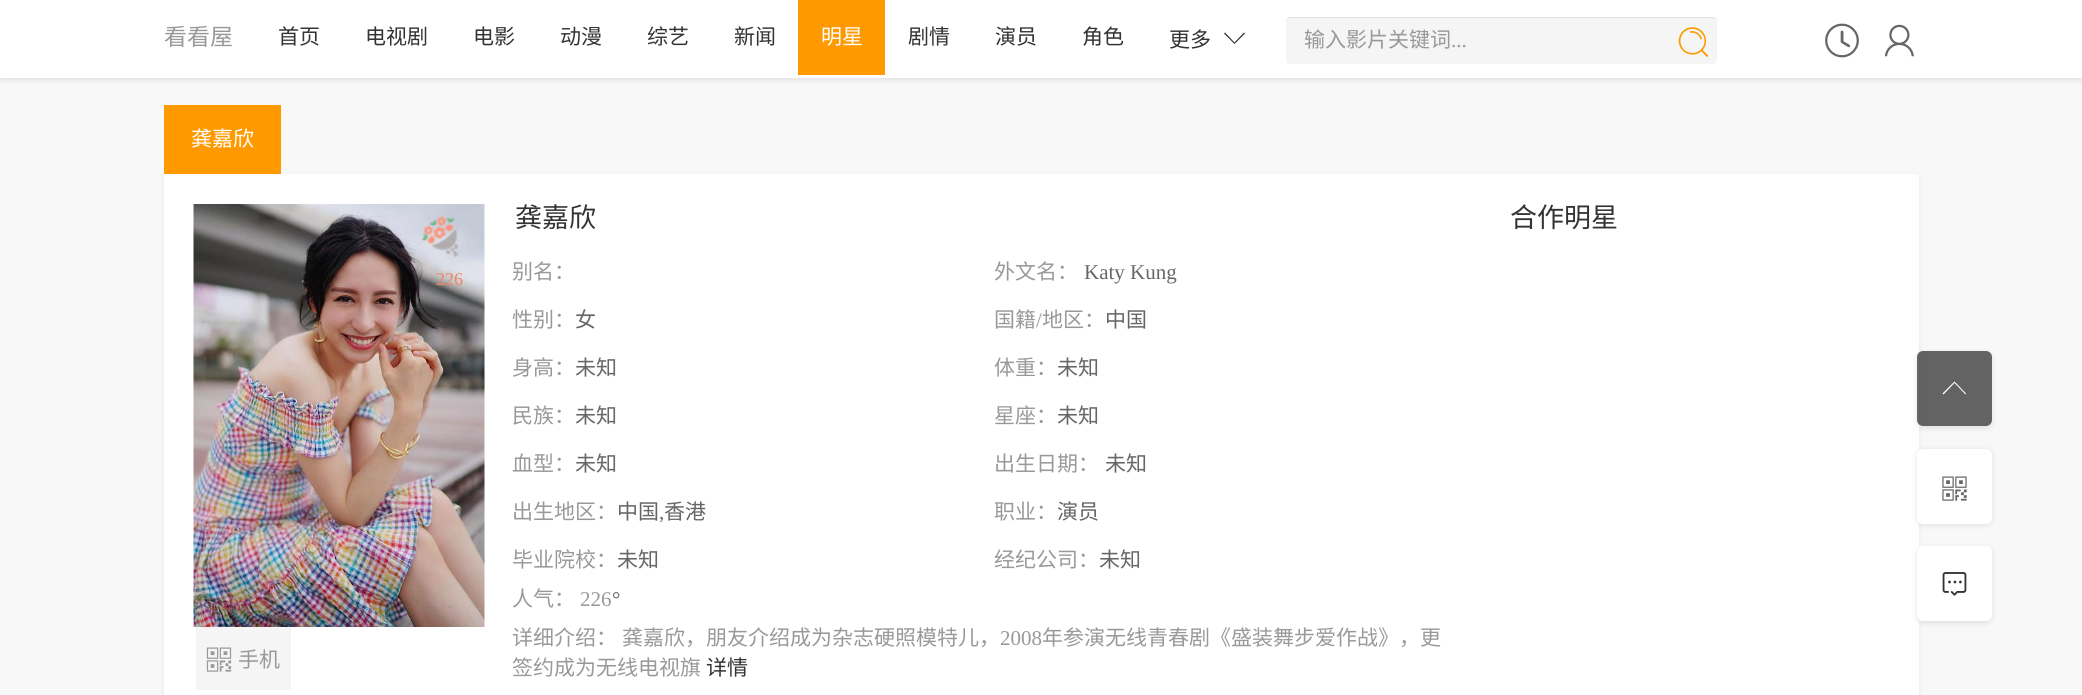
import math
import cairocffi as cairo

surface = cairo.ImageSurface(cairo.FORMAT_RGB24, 2082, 695)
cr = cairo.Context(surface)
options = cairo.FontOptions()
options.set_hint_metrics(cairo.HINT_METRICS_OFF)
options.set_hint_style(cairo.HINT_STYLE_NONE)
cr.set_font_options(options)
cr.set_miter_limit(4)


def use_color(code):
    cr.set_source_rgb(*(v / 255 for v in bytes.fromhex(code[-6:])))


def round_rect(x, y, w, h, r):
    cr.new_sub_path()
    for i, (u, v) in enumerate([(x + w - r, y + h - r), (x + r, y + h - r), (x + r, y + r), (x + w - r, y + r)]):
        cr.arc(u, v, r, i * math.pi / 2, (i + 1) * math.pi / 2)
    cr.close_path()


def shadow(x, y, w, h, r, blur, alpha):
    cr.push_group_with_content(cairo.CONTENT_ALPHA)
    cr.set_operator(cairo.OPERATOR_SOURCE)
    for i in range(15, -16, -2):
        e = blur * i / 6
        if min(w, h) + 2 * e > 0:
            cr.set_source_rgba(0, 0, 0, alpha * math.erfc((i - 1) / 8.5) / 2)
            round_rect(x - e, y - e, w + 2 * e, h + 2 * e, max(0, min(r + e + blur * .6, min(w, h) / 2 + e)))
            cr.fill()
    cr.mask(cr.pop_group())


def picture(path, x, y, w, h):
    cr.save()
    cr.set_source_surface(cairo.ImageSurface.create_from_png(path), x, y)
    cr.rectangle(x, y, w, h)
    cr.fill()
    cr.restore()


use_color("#f8f8f8")
cr.paint()
use_color("#000000")
shadow(0, 2, 2082, 78, 0, 3, 0.1)
use_color("#ffffff")
cr.rectangle(0, 0, 2082, 78)
cr.fill()
cr.select_font_face("Noto Sans CJK SC")
cr.set_font_size(23)
use_color("#999999")
cr.move_to(164, 45)
cr.show_text("看看屋")
cr.set_font_size(21)
use_color("#333333")
cr.move_to(278, 44)
cr.show_text("首页")
cr.move_to(365, 44)
cr.show_text("电视剧")
cr.move_to(473, 44)
cr.show_text("电影")
cr.move_to(560, 44)
cr.show_text("动漫")
cr.move_to(647, 44)
cr.show_text("综艺")
cr.move_to(734, 44)
cr.show_text("新闻")
use_color("#ff9900")
cr.rectangle(798, 0, 87, 75)
cr.fill()
use_color("#ffffff")
cr.move_to(821, 44)
cr.show_text("明星")
use_color("#333333")
cr.move_to(908, 44)
cr.show_text("剧情")
cr.move_to(995, 44)
cr.show_text("演员")
cr.move_to(1082, 44)
cr.show_text("角色")
cr.move_to(1169, 47)
cr.show_text("更多")
cr.new_path()
cr.move_to(1245, 33.5)
cr.line_to(1234.5, 44)
cr.line_to(1224, 33.5)
cr.line_to(1225, 32.5)
cr.line_to(1234.5, 42.5)
cr.line_to(1244, 32.5)
cr.close_path()
cr.fill()
use_color("#f5f5f5")
round_rect(1284, 15, 435, 51, 6)
cr.fill()
use_color("#e3e3e3")
cr.new_path()
cr.move_to(1290, 18)
cr.line_to(1713, 18)
cr.curve_to(1715, 18, 1718, 20, 1718, 22)
cr.curve_to(1718, 19, 1716, 17, 1713, 17)
cr.line_to(1291, 17)
cr.curve_to(1288, 17, 1286, 19, 1286, 22)
cr.curve_to(1286, 20, 1288, 18, 1290, 18)
cr.close_path()
cr.fill()
round_rect(1285, 16, 433, 49, 5)
use_color("#ffffff")
cr.stroke()
use_color("#999999")
cr.move_to(1304, 47)
cr.show_text("输入影片关键词")
cr.select_font_face("Liberation Serif")
cr.move_to(1451, 47)
cr.show_text("...")
picture("img1.png", 1678, 27, 31, 30)
picture("img2.png", 1825, 23, 34, 35)
picture("img3.png", 1884, 24, 30, 33)
use_color("#000000")
shadow(164, 176, 1755, 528, 0, 3, 0.07)
use_color("#ff9900")
cr.rectangle(164, 105, 117, 69)
cr.fill()
cr.select_font_face("Noto Sans CJK SC")
use_color("#ffffff")
cr.move_to(191, 146)
cr.show_text("龚嘉欣")
cr.rectangle(164, 174, 1755, 521)
cr.fill()
picture("img4.png", 193, 204, 292, 423)
picture("img5.png", 421, 216, 38, 41)
cr.select_font_face("Liberation Serif")
cr.set_font_size(18)
use_color("#f18167")
cr.move_to(436, 285)
cr.show_text("226")
use_color("#f5f5f5")
cr.rectangle(196, 627, 95, 63)
cr.fill()
picture("img6.png", 206, 647, 26, 25)
cr.select_font_face("Noto Sans CJK SC")
cr.set_font_size(21)
use_color("#999999")
cr.move_to(238, 667)
cr.show_text("手机")
cr.set_font_size(27)
use_color("#333333")
cr.move_to(515, 227)
cr.show_text("龚嘉欣")
cr.set_font_size(21)
use_color("#999999")
cr.move_to(512, 279)
cr.show_text("别名：")
cr.move_to(994, 279)
cr.show_text("外文名：")
cr.select_font_face("Liberation Serif")
use_color("#666666")
cr.move_to(1084, 279)
cr.show_text("Katy Kung")
cr.select_font_face("Noto Sans CJK SC")
use_color("#999999")
cr.move_to(512, 327)
cr.show_text("性别：")
use_color("#666666")
cr.move_to(575, 327)
cr.show_text("女")
use_color("#999999")
cr.move_to(994, 327)
cr.show_text("国籍")
cr.select_font_face("Liberation Serif")
cr.move_to(1036, 327)
cr.show_text("/")
cr.select_font_face("Noto Sans CJK SC")
cr.move_to(1042, 327)
cr.show_text("地区：")
use_color("#666666")
cr.move_to(1105, 327)
cr.show_text("中国")
use_color("#999999")
cr.move_to(512, 375)
cr.show_text("身高：")
use_color("#666666")
cr.move_to(575, 375)
cr.show_text("未知")
use_color("#999999")
cr.move_to(994, 375)
cr.show_text("体重：")
use_color("#666666")
cr.move_to(1057, 375)
cr.show_text("未知")
use_color("#999999")
cr.move_to(512, 423)
cr.show_text("民族：")
use_color("#666666")
cr.move_to(575, 423)
cr.show_text("未知")
use_color("#999999")
cr.move_to(994, 423)
cr.show_text("星座：")
use_color("#666666")
cr.move_to(1057, 423)
cr.show_text("未知")
use_color("#999999")
cr.move_to(512, 471)
cr.show_text("血型：")
use_color("#666666")
cr.move_to(575, 471)
cr.show_text("未知")
use_color("#999999")
cr.move_to(994, 471)
cr.show_text("出生日期：")
use_color("#666666")
cr.move_to(1105, 471)
cr.show_text("未知")
use_color("#999999")
cr.move_to(512, 519)
cr.show_text("出生地区：")
use_color("#666666")
cr.move_to(617, 519)
cr.show_text("中国")
cr.select_font_face("Liberation Serif")
cr.move_to(659, 519)
cr.show_text(",")
cr.select_font_face("Noto Sans CJK SC")
cr.move_to(664, 519)
cr.show_text("香港")
use_color("#999999")
cr.move_to(994, 519)
cr.show_text("职业：")
use_color("#666666")
cr.move_to(1057, 519)
cr.show_text("演员")
use_color("#999999")
cr.move_to(512, 567)
cr.show_text("毕业院校：")
use_color("#666666")
cr.move_to(617, 567)
cr.show_text("未知")
use_color("#999999")
cr.move_to(994, 567)
cr.show_text("经纪公司：")
use_color("#666666")
cr.move_to(1099, 567)
cr.show_text("未知")
use_color("#999999")
cr.move_to(512, 606)
cr.show_text("人气：")
cr.select_font_face("Liberation Serif")
cr.move_to(580, 606)
cr.show_text("226")
use_color("#666666")
cr.move_to(612, 606)
cr.show_text("°")
cr.select_font_face("Noto Sans CJK SC")
use_color("#999999")
cr.move_to(512, 645)
cr.show_text("详细介绍：")
cr.move_to(622, 645)
cr.show_text("龚嘉欣，朋友介绍成为杂志硬照模特儿，")
cr.select_font_face("Liberation Serif")
cr.move_to(1000, 645)
cr.show_text("2008")
cr.select_font_face("Noto Sans CJK SC")
cr.move_to(1042, 645)
cr.show_text("年参演无线青春剧《盛装舞步爱作战》，更")
cr.move_to(512, 675)
cr.show_text("签约成为无线电视旗")
use_color("#333333")
cr.move_to(706, 675)
cr.show_text("详情")
cr.set_font_size(27)
cr.move_to(1510, 227)
cr.show_text("合作明星")
cr.save()
cr.set_fill_rule(cairo.FILL_RULE_EVEN_ODD)
cr.new_path()
cr.move_to(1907, 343)
cr.line_to(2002, 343)
cr.line_to(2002, 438)
cr.line_to(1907, 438)
cr.close_path()
cr.move_to(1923, 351)
cr.line_to(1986, 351)
cr.curve_to(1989.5, 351, 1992, 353.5, 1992, 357)
cr.line_to(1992, 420)
cr.curve_to(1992, 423.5, 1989.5, 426, 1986, 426)
cr.line_to(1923, 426)
cr.curve_to(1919.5, 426, 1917, 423.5, 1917, 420)
cr.line_to(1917, 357)
cr.curve_to(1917, 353.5, 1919.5, 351, 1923, 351)
cr.close_path()
cr.clip()
use_color("#000000")
shadow(1917, 353, 75, 75, 6, 3, 0.1)
cr.restore()
cr.set_source_rgba(0, 0, 0, 0.6)
round_rect(1917, 351, 75, 75, 6)
cr.fill()
use_color("#ffffff")
cr.new_path()
cr.move_to(1942.5, 393.5)
cr.line_to(1954.5, 381.5)
cr.line_to(1966, 393.5)
cr.line_to(1965.5, 394.5)
cr.line_to(1954.5, 383)
cr.line_to(1943.5, 394.5)
cr.close_path()
cr.fill()
use_color("#000000")
shadow(1917, 450, 75, 75, 6, 3, 0.1)
use_color("#ffffff")
round_rect(1917, 449, 75, 75, 6)
cr.fill()
picture("img7.png", 1942, 476, 25, 25)
use_color("#000000")
shadow(1917, 548, 75, 75, 6, 3, 0.1)
use_color("#ffffff")
round_rect(1917, 546, 75, 75, 6)
cr.fill()
picture("img8.png", 1942, 572, 25, 24)
surface.write_to_png("result.png")
